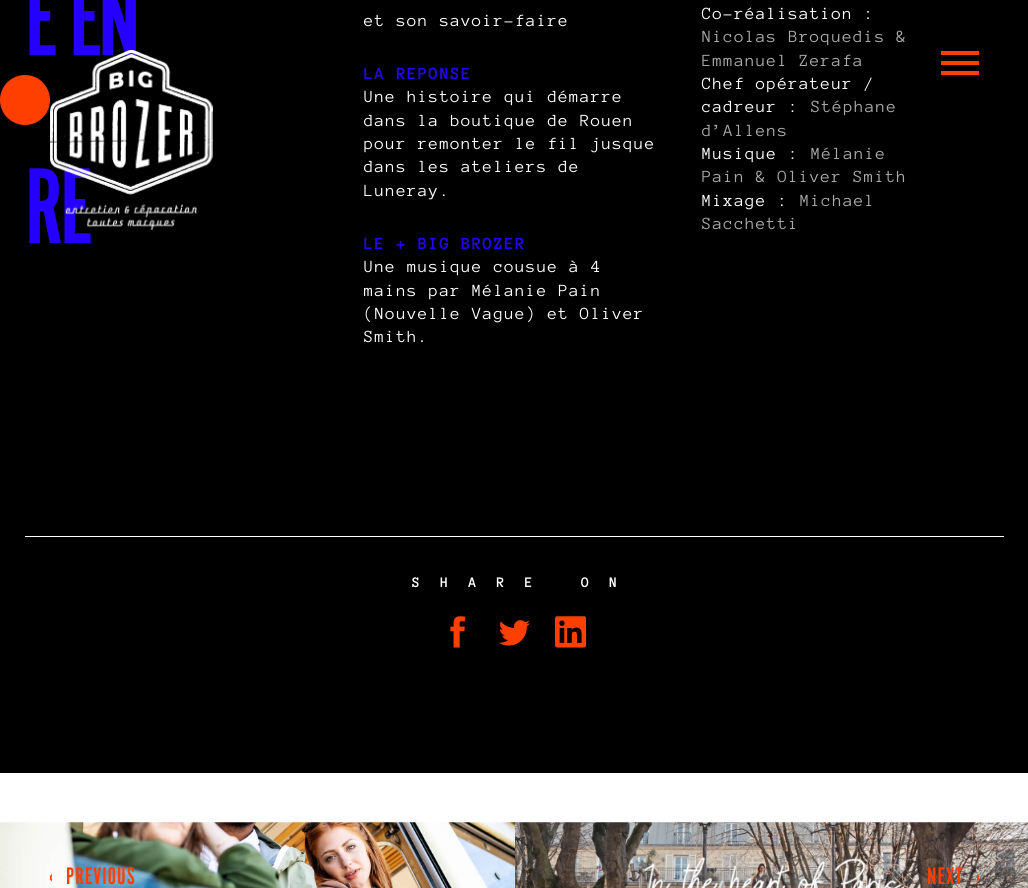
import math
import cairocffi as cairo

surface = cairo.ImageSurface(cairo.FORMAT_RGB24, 1028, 888)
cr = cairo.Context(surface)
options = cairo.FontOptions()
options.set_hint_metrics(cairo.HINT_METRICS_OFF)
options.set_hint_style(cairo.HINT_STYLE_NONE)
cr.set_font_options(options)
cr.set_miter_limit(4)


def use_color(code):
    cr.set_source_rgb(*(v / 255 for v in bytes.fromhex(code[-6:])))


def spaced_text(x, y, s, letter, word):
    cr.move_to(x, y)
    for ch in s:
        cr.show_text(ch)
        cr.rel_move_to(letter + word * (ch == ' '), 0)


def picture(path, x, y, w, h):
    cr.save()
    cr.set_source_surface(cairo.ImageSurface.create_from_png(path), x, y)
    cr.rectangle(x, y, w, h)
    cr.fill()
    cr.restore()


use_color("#000000")
cr.paint()
use_color("#ff3f00")
cr.arc(25, 100, 25, 0, 2 * math.pi)
cr.fill()
cr.select_font_face("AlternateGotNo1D")
cr.set_font_size(112)
use_color("#2600ff")
spaced_text(25, 55, "E EN", -4, 0)
spaced_text(25, 243, "RE", -4, 0)
cr.select_font_face("Anonymous Pro")
cr.set_font_size(17.5)
use_color("#ffffff")
spaced_text(364, 26, "et son savoir-faire", 1.25, 0)
cr.select_font_face("Anonymous Pro", cairo.FONT_SLANT_NORMAL, cairo.FONT_WEIGHT_BOLD)
use_color("#2600ff")
spaced_text(364, 79, "LA REPONSE", 1.25, 0)
cr.select_font_face("Anonymous Pro")
use_color("#ffffff")
spaced_text(364, 102, "Une histoire qui démarre", 1.25, 0)
spaced_text(364, 126, "dans la boutique de Rouen", 1.25, 0)
spaced_text(364, 149, "pour remonter le fil jusque", 1.25, 0)
spaced_text(364, 172, "dans les ateliers de", 1.25, 0)
spaced_text(364, 196, "Luneray.", 1.25, 0)
cr.select_font_face("Anonymous Pro", cairo.FONT_SLANT_NORMAL, cairo.FONT_WEIGHT_BOLD)
use_color("#2600ff")
spaced_text(364, 249, "LE + BIG BROZER", 1.25, 0)
cr.select_font_face("Anonymous Pro")
use_color("#ffffff")
spaced_text(364, 272, "Une musique cousue à 4", 1.25, 0)
spaced_text(364, 296, "mains par Mélanie Pain", 1.25, 0)
spaced_text(364, 319, "(Nouvelle Vague) et Oliver", 1.25, 0)
spaced_text(364, 342, "Smith.", 1.25, 0)
spaced_text(702, 19, "Co-réalisation :", 1.25, 0)
use_color("#aaaaaa")
spaced_text(702, 42, "Nicolas Broquedis &", 1.25, 0)
spaced_text(702, 66, "Emmanuel Zerafa", 1.25, 0)
use_color("#ffffff")
spaced_text(702, 89, "Chef opérateur /", 1.25, 0)
spaced_text(702, 112, "cadreur :", 1.25, 0)
use_color("#aaaaaa")
spaced_text(811, 112, "Stéphane", 1.25, 0)
spaced_text(702, 136, "d’Allens", 1.25, 0)
use_color("#ffffff")
spaced_text(702, 159, "Musique :", 1.25, 0)
use_color("#aaaaaa")
spaced_text(811, 159, "Mélanie", 1.25, 0)
spaced_text(702, 182, "Pain & Oliver Smith", 1.25, 0)
use_color("#ffffff")
spaced_text(702, 206, "Mixage :", 1.25, 0)
use_color("#aaaaaa")
spaced_text(800, 206, "Michael", 1.25, 0)
spaced_text(702, 229, "Sacchetti", 1.25, 0)
use_color("#ffffff")
cr.rectangle(25, 536, 979, 1)
cr.fill()
cr.select_font_face("Anonymous Pro", cairo.FONT_SLANT_NORMAL, cairo.FONT_WEIGHT_BOLD)
cr.set_font_size(15)
spaced_text(412, 587, "SHARE ON", 20, 0)
picture("img1.png", 450, 616, 16, 32)
picture("img2.png", 499, 620, 31, 26)
picture("img3.png", 555, 616, 31, 32)
cr.rectangle(0, 773, 1028, 50)
cr.fill()
picture("img4.png", 0, 822, 515, 66)
cr.select_font_face("AlternateGotNo1D")
cr.set_font_size(25)
use_color("#ff3f00")
spaced_text(49, 884, "‹", 1, 0)
spaced_text(66, 884, "PREVIOUS", 1, 0)
picture("img5.png", 515, 822, 513, 66)
spaced_text(927, 884, "NEXT", 1, 0)
spaced_text(976, 884, "›", 1, 0)
picture("img6.png", 50, 50, 163, 180)
cr.rectangle(941, 61, 38, 4)
cr.fill()
cr.rectangle(941, 51, 38, 4)
cr.fill()
cr.rectangle(941, 71, 38, 4)
cr.fill()
surface.write_to_png("result.png")
